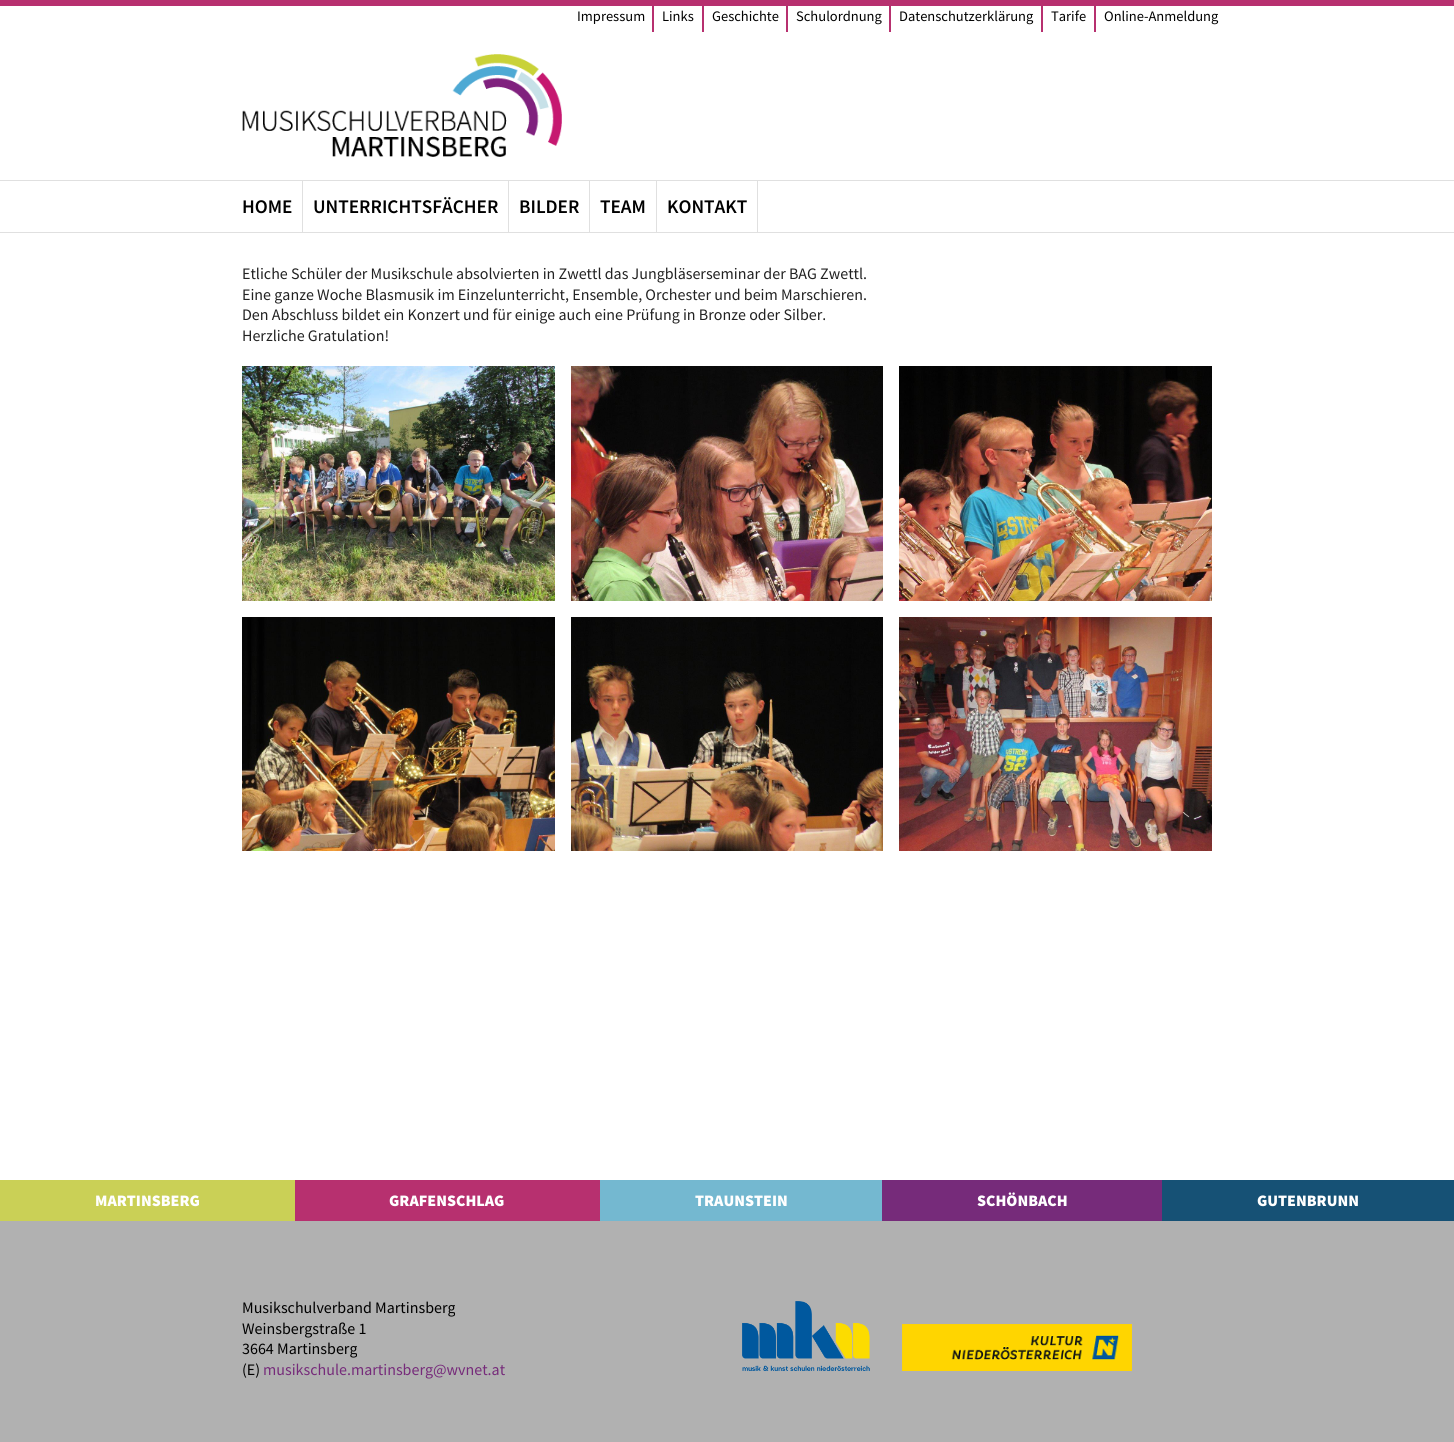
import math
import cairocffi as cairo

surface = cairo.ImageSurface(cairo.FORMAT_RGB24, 1454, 1442)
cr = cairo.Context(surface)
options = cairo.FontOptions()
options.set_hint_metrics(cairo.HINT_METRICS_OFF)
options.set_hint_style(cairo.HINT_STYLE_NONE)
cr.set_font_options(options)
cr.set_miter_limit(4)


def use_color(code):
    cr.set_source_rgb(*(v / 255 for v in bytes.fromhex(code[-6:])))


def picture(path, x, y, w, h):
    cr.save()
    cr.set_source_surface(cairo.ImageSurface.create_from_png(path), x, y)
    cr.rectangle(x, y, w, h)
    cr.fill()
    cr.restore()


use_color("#b7306f")
cr.paint()
use_color("#ffffff")
cr.rectangle(0, 6, 1454, 1174)
cr.fill()
use_color("#b7306f")
cr.rectangle(652, 6, 2, 26)
cr.fill()
cr.select_font_face("Source Sans Pro")
cr.set_font_size(14.5)
use_color("#000000")
cr.move_to(577, 21)
cr.show_text("Impressum")
use_color("#b7306f")
cr.rectangle(702, 6, 2, 26)
cr.fill()
use_color("#000000")
cr.move_to(662, 21)
cr.show_text("Links")
use_color("#b7306f")
cr.rectangle(786, 6, 2, 26)
cr.fill()
use_color("#000000")
cr.move_to(712, 21)
cr.show_text("Geschichte")
use_color("#b7306f")
cr.rectangle(889, 6, 2, 26)
cr.fill()
use_color("#000000")
cr.move_to(796, 21)
cr.show_text("Schulordnung")
use_color("#b7306f")
cr.rectangle(1041, 6, 2, 26)
cr.fill()
use_color("#000000")
cr.move_to(899, 21)
cr.show_text("Datenschutzerklärung")
use_color("#b7306f")
cr.rectangle(1094, 6, 2, 26)
cr.fill()
use_color("#000000")
cr.move_to(1051, 21)
cr.show_text("Tarife")
cr.move_to(1104, 21)
cr.show_text("Online-Anmeldung")
picture("img1.png", 242, 54, 320, 103)
use_color("#e0e0e0")
cr.rectangle(0, 180, 1454, 1)
cr.fill()
cr.rectangle(0, 232, 1454, 1)
cr.fill()
cr.rectangle(302, 181, 1, 51)
cr.fill()
cr.select_font_face("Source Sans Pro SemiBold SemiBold")
cr.set_font_size(19.25)
use_color("#000000")
cr.move_to(242, 213)
cr.show_text("HOME")
use_color("#e0e0e0")
cr.rectangle(508, 181, 1, 51)
cr.fill()
use_color("#000000")
cr.move_to(313, 213)
cr.show_text("UNTERRICHTSFÄCHER")
use_color("#e0e0e0")
cr.rectangle(589, 181, 1, 51)
cr.fill()
use_color("#000000")
cr.move_to(519, 213)
cr.show_text("BILDER")
use_color("#e0e0e0")
cr.rectangle(656, 181, 1, 51)
cr.fill()
use_color("#000000")
cr.move_to(600, 213)
cr.show_text("TEAM")
use_color("#e0e0e0")
cr.rectangle(757, 181, 1, 51)
cr.fill()
use_color("#000000")
cr.move_to(667, 213)
cr.show_text("KONTAKT")
cr.select_font_face("Source Sans Pro")
cr.set_font_size(16)
use_color("#222222")
cr.move_to(242, 279)
cr.show_text("Etliche Schüler der Musikschule absolvierten in Zwettl das Jungbläserseminar der BAG Zwettl.")
cr.move_to(242, 300)
cr.show_text("Eine ganze Woche Blasmusik im Einzelunterricht, Ensemble, Orchester und beim Marschieren.")
cr.move_to(242, 320)
cr.show_text("Den Abschluss bildet ein Konzert und für einige auch eine Prüfung in Bronze oder Silber.")
cr.move_to(242, 341)
cr.show_text("Herzliche Gratulation!")
picture("img2.png", 242, 366, 313, 235)
picture("img3.png", 571, 366, 312, 235)
picture("img4.png", 899, 366, 313, 235)
picture("img5.png", 242, 617, 313, 234)
picture("img6.png", 571, 617, 312, 234)
picture("img7.png", 899, 617, 313, 234)
use_color("#b1b1b1")
cr.rectangle(0, 1221, 1454, 221)
cr.fill()
use_color("#cad056")
cr.rectangle(0, 1180, 295, 41)
cr.fill()
cr.select_font_face("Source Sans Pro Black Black")
use_color("#ffffff")
cr.move_to(95, 1206)
cr.show_text("MARTINSBERG")
cr.move_to(389, 1206)
cr.show_text("GRAFENSCHLAG")
use_color("#74b8d0")
cr.rectangle(600, 1180, 282, 41)
cr.fill()
use_color("#ffffff")
cr.move_to(695, 1206)
cr.show_text("TRAUNSTEIN")
use_color("#762b7a")
cr.rectangle(882, 1180, 280, 41)
cr.fill()
use_color("#ffffff")
cr.move_to(977, 1206)
cr.show_text("SCHÖNBACH")
use_color("#165175")
cr.rectangle(1162, 1180, 292, 41)
cr.fill()
use_color("#ffffff")
cr.move_to(1257, 1206)
cr.show_text("GUTENBRUNN")
cr.select_font_face("Source Sans Pro")
use_color("#000000")
cr.move_to(242, 1313)
cr.show_text("Musikschulverband Martinsberg")
cr.move_to(242, 1334)
cr.show_text("Weinsbergstraße 1")
cr.move_to(242, 1354)
cr.show_text("3664 Martinsberg")
cr.move_to(242, 1375)
cr.show_text("(E)")
use_color("#762b7a")
cr.move_to(263, 1375)
cr.show_text("musikschule.martinsberg@wvnet.at")
picture("img8.png", 742, 1301, 128, 70)
picture("img9.png", 902, 1324, 230, 47)
surface.write_to_png("result.png")
